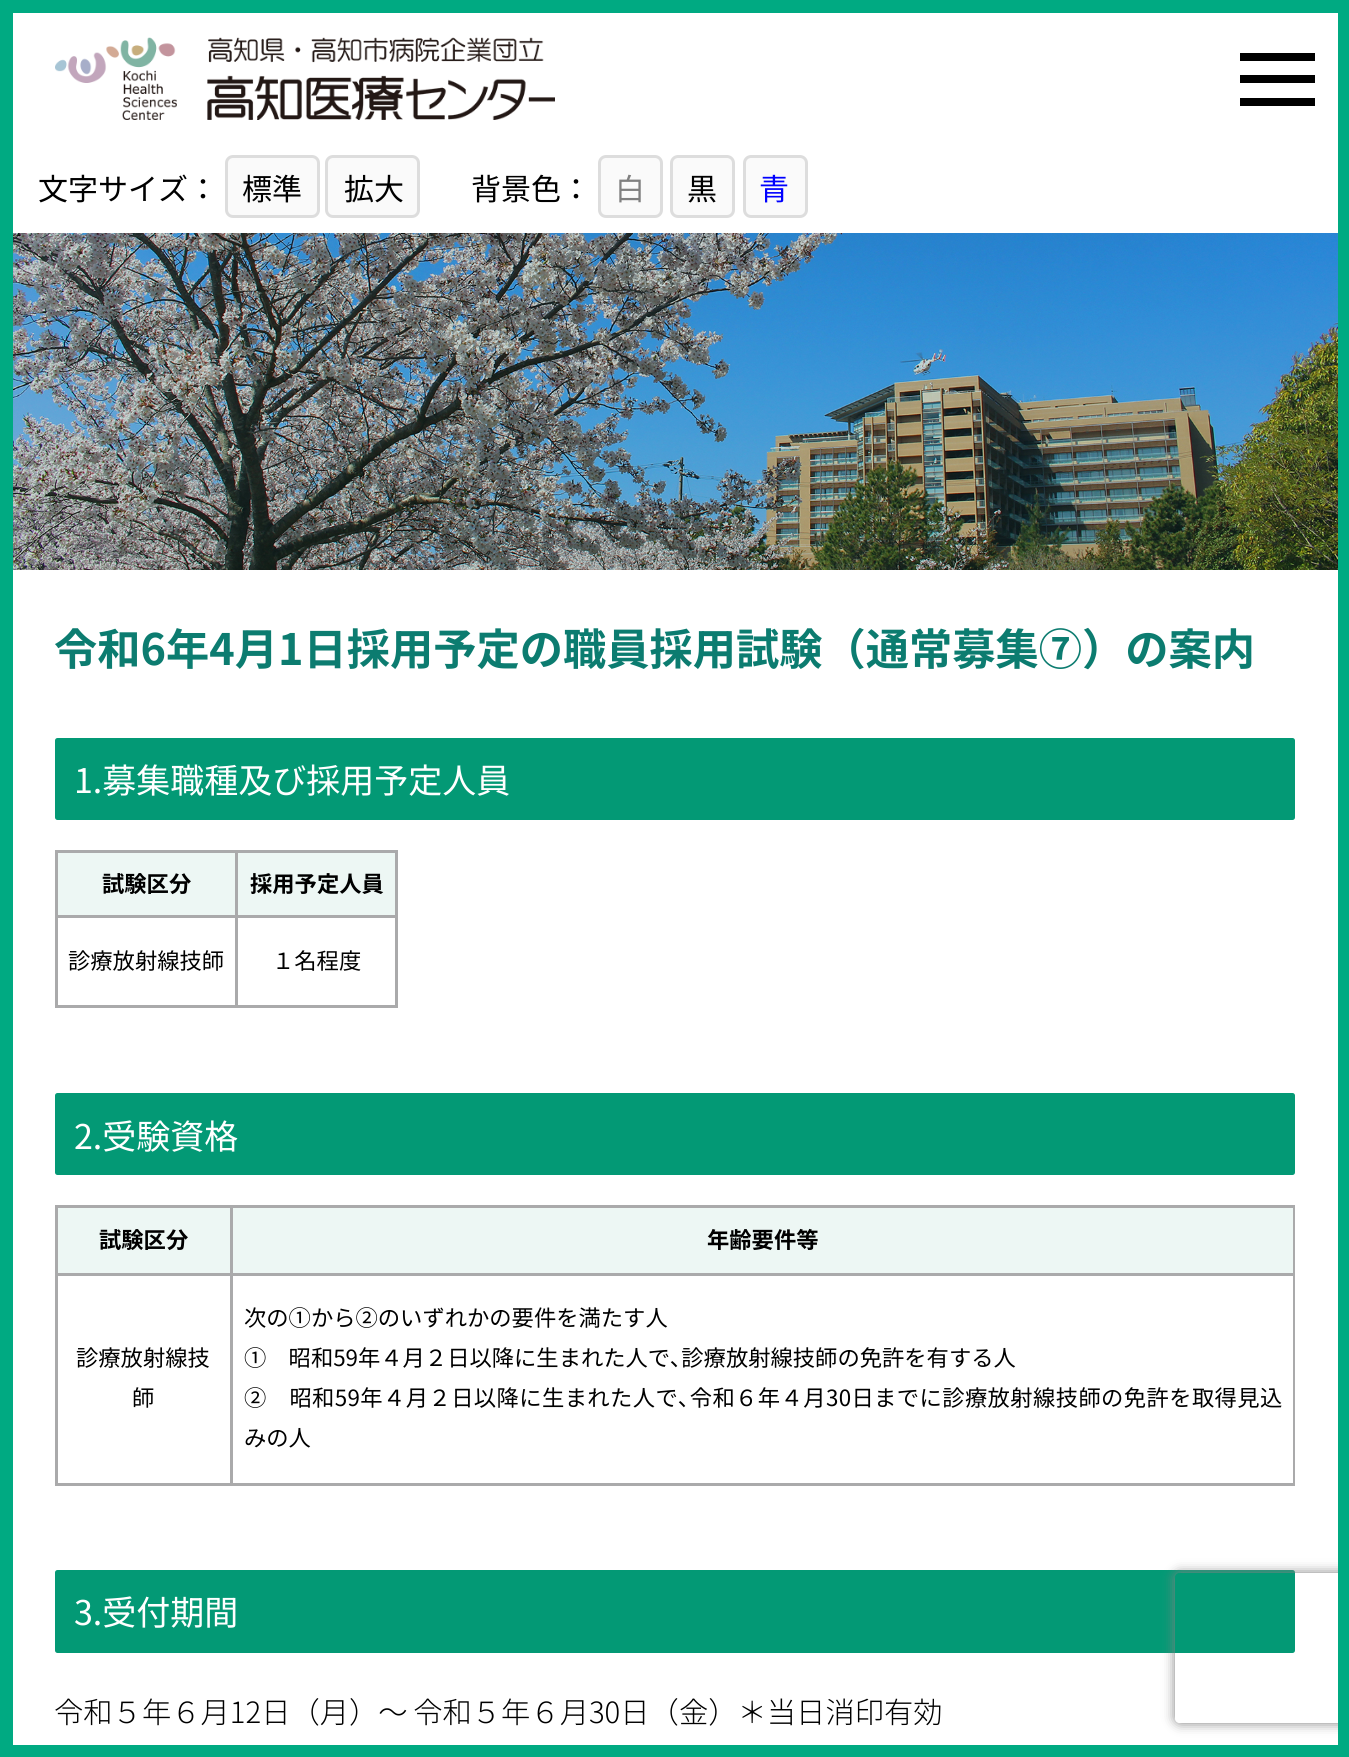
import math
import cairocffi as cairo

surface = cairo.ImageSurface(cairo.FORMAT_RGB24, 1349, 1757)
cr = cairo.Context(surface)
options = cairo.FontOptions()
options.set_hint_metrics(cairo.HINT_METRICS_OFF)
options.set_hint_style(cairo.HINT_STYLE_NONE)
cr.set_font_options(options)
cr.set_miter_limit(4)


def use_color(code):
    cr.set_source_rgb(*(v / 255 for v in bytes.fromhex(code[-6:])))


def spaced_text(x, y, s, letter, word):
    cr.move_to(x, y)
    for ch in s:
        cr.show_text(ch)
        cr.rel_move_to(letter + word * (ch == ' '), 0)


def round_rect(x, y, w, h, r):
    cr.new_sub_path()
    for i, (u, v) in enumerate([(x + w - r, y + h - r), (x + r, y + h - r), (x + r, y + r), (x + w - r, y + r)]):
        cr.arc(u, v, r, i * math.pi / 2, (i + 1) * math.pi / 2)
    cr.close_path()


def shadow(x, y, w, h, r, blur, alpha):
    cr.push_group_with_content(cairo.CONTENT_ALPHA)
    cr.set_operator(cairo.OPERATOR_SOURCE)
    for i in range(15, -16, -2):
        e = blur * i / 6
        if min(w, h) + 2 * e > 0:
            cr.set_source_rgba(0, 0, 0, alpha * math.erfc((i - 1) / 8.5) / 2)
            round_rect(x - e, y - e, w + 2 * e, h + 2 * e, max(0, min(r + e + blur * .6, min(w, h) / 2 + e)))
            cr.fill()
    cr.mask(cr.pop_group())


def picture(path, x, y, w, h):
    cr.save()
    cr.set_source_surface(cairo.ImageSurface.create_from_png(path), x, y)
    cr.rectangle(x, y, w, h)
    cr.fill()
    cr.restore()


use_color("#ffffff")
cr.paint()
use_color("#00aa82")
cr.rectangle(13, 0, 1325, 13)
cr.fill()
use_color("#039975")
round_rect(55, 1570, 1240, 83, 2.5)
cr.fill()
cr.save()
cr.set_fill_rule(cairo.FILL_RULE_EVEN_ODD)
cr.new_path()
cr.move_to(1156, 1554)
cr.line_to(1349, 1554)
cr.line_to(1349, 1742)
cr.line_to(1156, 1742)
cr.close_path()
cr.move_to(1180, 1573)
cr.line_to(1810, 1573)
cr.curve_to(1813, 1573, 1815, 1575, 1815, 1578)
cr.line_to(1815, 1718)
cr.curve_to(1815, 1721, 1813, 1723, 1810, 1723)
cr.line_to(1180, 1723)
cr.curve_to(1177, 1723, 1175, 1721, 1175, 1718)
cr.line_to(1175, 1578)
cr.curve_to(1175, 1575, 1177, 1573, 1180, 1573)
cr.close_path()
cr.clip()
use_color("#808080")
shadow(1175, 1573, 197, 150, 5, 6, 1)
cr.restore()
use_color("#00aa82")
cr.rectangle(1338, 0, 11, 1757)
cr.fill()
cr.rectangle(0, 0, 13, 1757)
cr.fill()
use_color("#000000")
cr.rectangle(1240, 53, 75, 8)
cr.fill()
cr.rectangle(1240, 75, 75, 8)
cr.fill()
cr.rectangle(1240, 98, 75, 8)
cr.fill()
picture("img1.png", 55, 37, 500, 83)
cr.select_font_face("Noto Sans JP")
cr.set_font_size(30)
cr.move_to(38, 200)
cr.show_text("文字サイズ：")
use_color("#fafafa")
round_rect(226.5, 156.5, 92, 60, 6.5)
cr.fill_preserve()
use_color("#dddddd")
cr.set_line_width(3)
cr.stroke()
use_color("#000000")
cr.move_to(242, 200)
cr.show_text("標準")
use_color("#fafafa")
round_rect(326.5, 156.5, 92, 60, 6.5)
cr.fill_preserve()
use_color("#dddddd")
cr.stroke()
use_color("#000000")
cr.move_to(344, 200)
cr.show_text("拡大")
cr.move_to(471, 200)
cr.show_text("背景色：")
use_color("#fafafa")
round_rect(599.5, 156.5, 62, 60, 6.5)
cr.fill_preserve()
use_color("#dddddd")
cr.stroke()
use_color("#808080")
cr.move_to(615, 200)
cr.show_text("白")
use_color("#fafafa")
round_rect(671.5, 156.5, 62, 60, 6.5)
cr.fill_preserve()
use_color("#dddddd")
cr.stroke()
use_color("#000000")
cr.move_to(687, 200)
cr.show_text("黒")
use_color("#fafafa")
round_rect(744.5, 156.5, 62, 60, 6.5)
cr.fill_preserve()
use_color("#dddddd")
cr.stroke()
use_color("#0000ff")
cr.move_to(759, 200)
cr.show_text("青")
picture("img2.png", 13, 233, 1325, 337)
cr.select_font_face("Noto Sans JP", cairo.FONT_SLANT_NORMAL, cairo.FONT_WEIGHT_BOLD)
cr.set_font_size(43.25)
use_color("#0c7c70")
cr.move_to(54, 665)
cr.show_text("令和6年4月1日採用予定の職員採用試験（通常募集⑦）の案内")
use_color("#039975")
round_rect(55, 738, 1240, 82, 2.5)
cr.fill()
cr.select_font_face("Noto Sans JP")
cr.set_font_size(34)
use_color("#ffffff")
cr.move_to(74, 793)
cr.show_text("1.募集職種及び採用予定人員")
use_color("#aaaaab")
cr.rectangle(55, 850, 343, 3)
cr.fill()
cr.rectangle(395, 850, 3, 158)
cr.fill()
cr.rectangle(55, 1005, 343, 3)
cr.fill()
cr.rectangle(55, 850, 3, 158)
cr.fill()
use_color("#edf7f4")
cr.rectangle(58, 853, 177, 62)
cr.fill()
cr.select_font_face("Noto Sans JP", cairo.FONT_SLANT_NORMAL, cairo.FONT_WEIGHT_BOLD)
cr.set_font_size(22.3)
use_color("#000000")
cr.move_to(102, 892)
cr.show_text("試験区分")
use_color("#edf7f4")
cr.rectangle(238, 853, 157, 62)
cr.fill()
use_color("#aaaaab")
cr.rectangle(235, 915, 163, 3)
cr.fill()
cr.rectangle(235, 915, 3, 93)
cr.fill()
cr.rectangle(55, 915, 183, 3)
cr.fill()
cr.rectangle(235, 850, 3, 68)
cr.fill()
use_color("#000000")
cr.move_to(250, 892)
cr.show_text("採用予定人員")
cr.select_font_face("Noto Sans JP")
cr.move_to(68, 969)
cr.show_text("診療放射線技師")
cr.move_to(272, 969)
cr.show_text("１名程度")
use_color("#039975")
round_rect(55, 1093, 1240, 82, 2.5)
cr.fill()
cr.set_font_size(34)
use_color("#ffffff")
cr.move_to(74, 1149)
cr.show_text("2.受験資格")
use_color("#aaaaab")
cr.rectangle(55, 1205, 1240, 3)
cr.fill()
cr.rectangle(1293, 1205, 2, 280)
cr.fill()
cr.rectangle(55, 1483, 1240, 3)
cr.fill()
cr.rectangle(55, 1205, 3, 280)
cr.fill()
use_color("#edf7f4")
cr.rectangle(58, 1208, 172, 65)
cr.fill()
cr.select_font_face("Noto Sans JP", cairo.FONT_SLANT_NORMAL, cairo.FONT_WEIGHT_BOLD)
cr.set_font_size(22.3)
use_color("#000000")
cr.move_to(99, 1248)
cr.show_text("試験区分")
use_color("#edf7f4")
cr.rectangle(233, 1208, 1060, 65)
cr.fill()
use_color("#aaaaab")
cr.rectangle(230, 1273, 1065, 3)
cr.fill()
cr.rectangle(230, 1273, 3, 212)
cr.fill()
cr.rectangle(55, 1273, 178, 3)
cr.fill()
cr.rectangle(230, 1205, 3, 70)
cr.fill()
use_color("#000000")
cr.move_to(707, 1248)
cr.show_text("年齢要件等")
cr.select_font_face("Noto Sans JP")
cr.move_to(76, 1366)
cr.show_text("診療放射線技")
cr.move_to(132, 1406)
cr.show_text("師")
cr.move_to(244, 1326)
cr.show_text("次の①から②のいずれかの要件を満たす人")
cr.move_to(244, 1366)
cr.show_text("①　昭和59年４月２日以降に生まれた人で､診療放射線技師の免許を有する人")
spaced_text(244, 1406, "②　昭和59年４月２日以降に生まれた人で､令和６年４月30日までに診療放射線技師の免許を取得見込", 0.4, 0)
cr.move_to(244, 1446)
cr.show_text("みの人")
cr.set_font_size(34)
use_color("#ffffff")
cr.move_to(74, 1625)
cr.show_text("3.受付期間")
cr.select_font_face("Noto Sans JP Light")
cr.set_font_size(29.3)
use_color("#000000")
spaced_text(54, 1723, "令和５年６月12日（月）～ 令和５年６月30日（金）＊当日消印有効", 0, -1)
use_color("#00aa82")
cr.rectangle(13, 1745, 1325, 12)
cr.fill()
surface.write_to_png("result.png")
